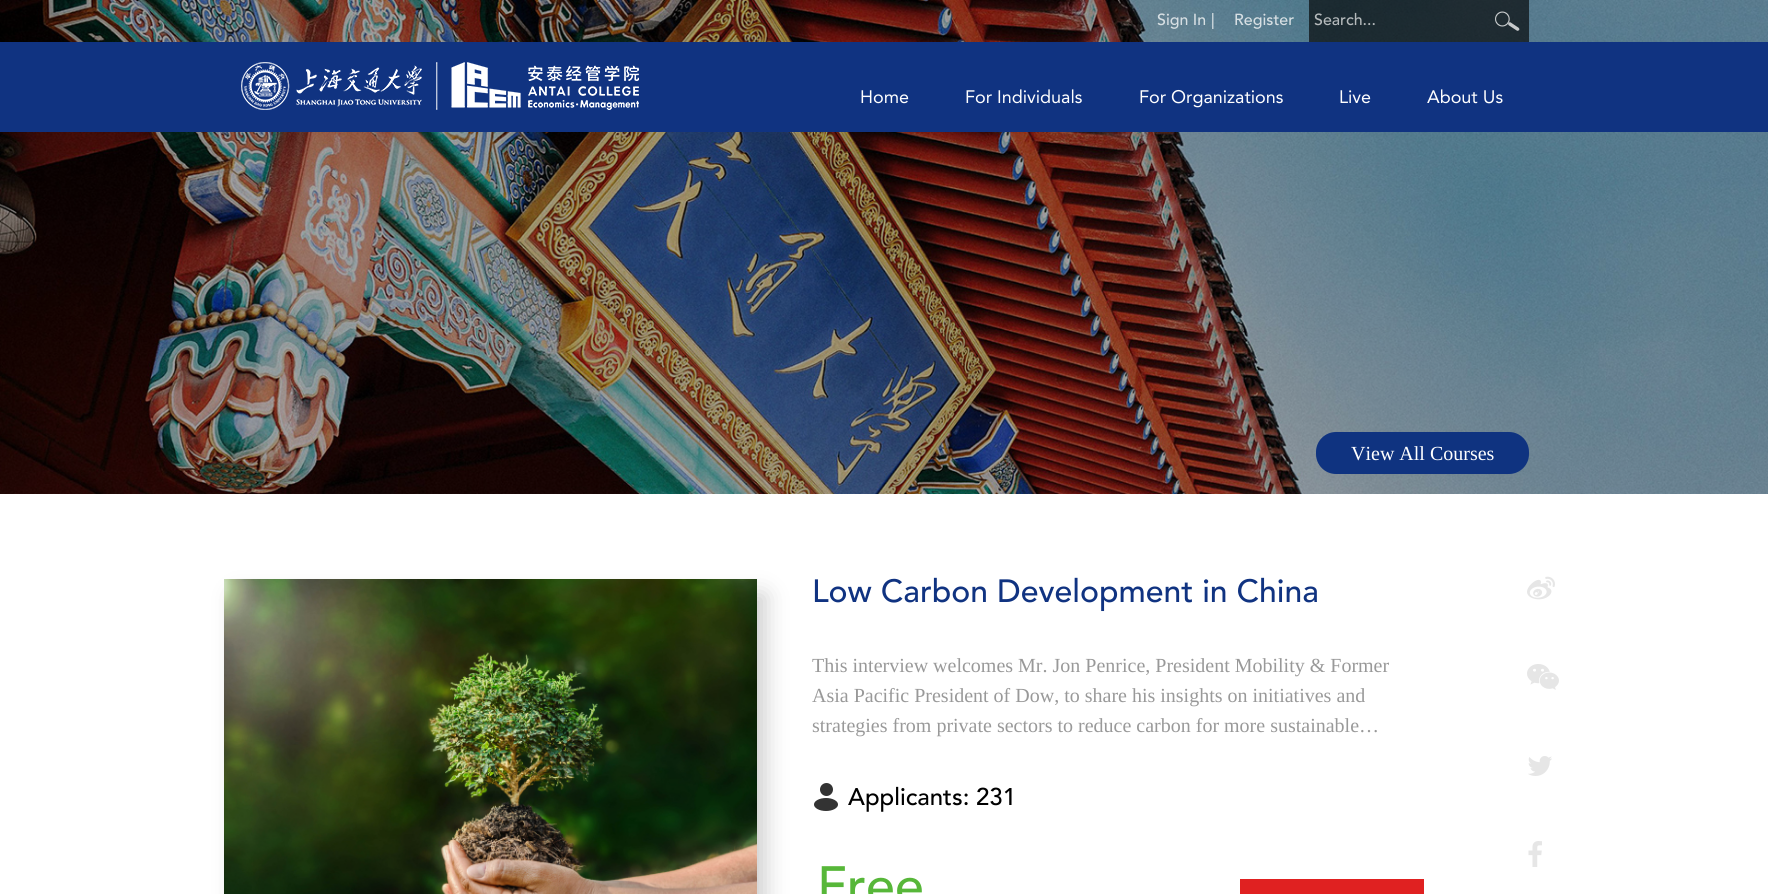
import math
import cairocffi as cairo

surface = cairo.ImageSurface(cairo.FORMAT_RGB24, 1768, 894)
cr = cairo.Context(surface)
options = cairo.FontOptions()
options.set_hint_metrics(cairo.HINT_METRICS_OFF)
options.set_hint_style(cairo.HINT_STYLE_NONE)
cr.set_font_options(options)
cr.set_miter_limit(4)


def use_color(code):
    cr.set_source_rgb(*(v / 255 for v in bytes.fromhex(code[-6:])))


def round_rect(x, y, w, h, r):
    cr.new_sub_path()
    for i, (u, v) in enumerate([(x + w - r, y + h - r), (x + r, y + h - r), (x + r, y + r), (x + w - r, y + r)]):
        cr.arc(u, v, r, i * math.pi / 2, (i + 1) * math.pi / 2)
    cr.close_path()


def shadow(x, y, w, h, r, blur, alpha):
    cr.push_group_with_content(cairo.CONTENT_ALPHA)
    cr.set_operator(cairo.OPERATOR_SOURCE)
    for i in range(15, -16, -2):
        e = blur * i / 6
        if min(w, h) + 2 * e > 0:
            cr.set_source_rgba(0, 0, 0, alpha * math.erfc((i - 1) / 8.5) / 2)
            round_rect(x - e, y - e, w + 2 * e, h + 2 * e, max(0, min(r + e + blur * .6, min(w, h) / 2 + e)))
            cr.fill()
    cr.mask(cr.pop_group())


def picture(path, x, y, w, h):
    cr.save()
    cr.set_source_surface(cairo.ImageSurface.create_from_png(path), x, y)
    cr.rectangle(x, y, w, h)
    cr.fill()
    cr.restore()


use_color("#ffffff")
cr.paint()
picture("img3.png", 0, 0, 1768, 494)
cr.select_font_face("Avenir Medium")
cr.set_font_size(16)
use_color("#d7dfe3")
cr.move_to(1157, 25)
cr.show_text("Sign In")
cr.move_to(1211, 25)
cr.show_text("|")
cr.move_to(1234, 25)
cr.show_text("Register")
picture("img1.png", 1309, 0, 220, 42)
use_color("#b5babc")
cr.move_to(1314, 25)
cr.show_text("Search...")
use_color("#103381")
cr.rectangle(0, 42, 1768, 90)
cr.fill()
picture("img2.png", 241, 62, 398, 48)
cr.select_font_face("Avenir")
cr.set_font_size(18)
use_color("#ffffff")
cr.move_to(860, 103)
cr.show_text("Home")
cr.move_to(965, 103)
cr.show_text("For Individuals")
cr.move_to(1139, 103)
cr.show_text("For Organizations")
cr.move_to(1339, 103)
cr.show_text("Live")
cr.move_to(1427, 103)
cr.show_text("About Us")
use_color("#0f3380")
round_rect(1316, 432, 213, 42, 20)
cr.fill()
cr.select_font_face("Liberation Serif")
cr.set_font_size(20)
use_color("#ffffff")
cr.move_to(1351, 460)
cr.show_text("View All Courses")
use_color("#cccccc")
shadow(236, 595, 529, 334, 0, 11.5, 1)
picture("img4.png", 224, 579, 533, 315)
cr.select_font_face("Avenir Medium")
cr.set_font_size(32)
use_color("#103381")
cr.move_to(812, 602)
cr.show_text("Low Carbon Development in China")
picture("img5.png", 1527, 576, 28, 24)
picture("img6.png", 1527, 664, 32, 26)
picture("img7.png", 1528, 756, 24, 20)
picture("img8.png", 1528, 841, 14, 26)
cr.select_font_face("Liberation Serif")
cr.set_font_size(20)
use_color("#999999")
cr.move_to(812, 672)
cr.show_text("This interview welcomes Mr. Jon Penrice, President Mobility & Former")
cr.move_to(812, 702)
cr.show_text("Asia Pacific President of Dow, to share his insights on initiatives and")
cr.move_to(812, 732)
cr.show_text("strategies from private sectors to reduce carbon for more sustainable…")
picture("img9.png", 814, 783, 24, 28)
cr.select_font_face("Avenir Medium")
cr.set_font_size(24)
use_color("#000000")
cr.move_to(848, 805)
cr.show_text("Applicants: 231")
cr.set_font_size(52)
use_color("#57b739")
cr.move_to(817, 903)
cr.show_text("Free")
use_color("#e02121")
cr.rectangle(1240, 879, 184, 15)
cr.fill()
surface.write_to_png("result.png")
